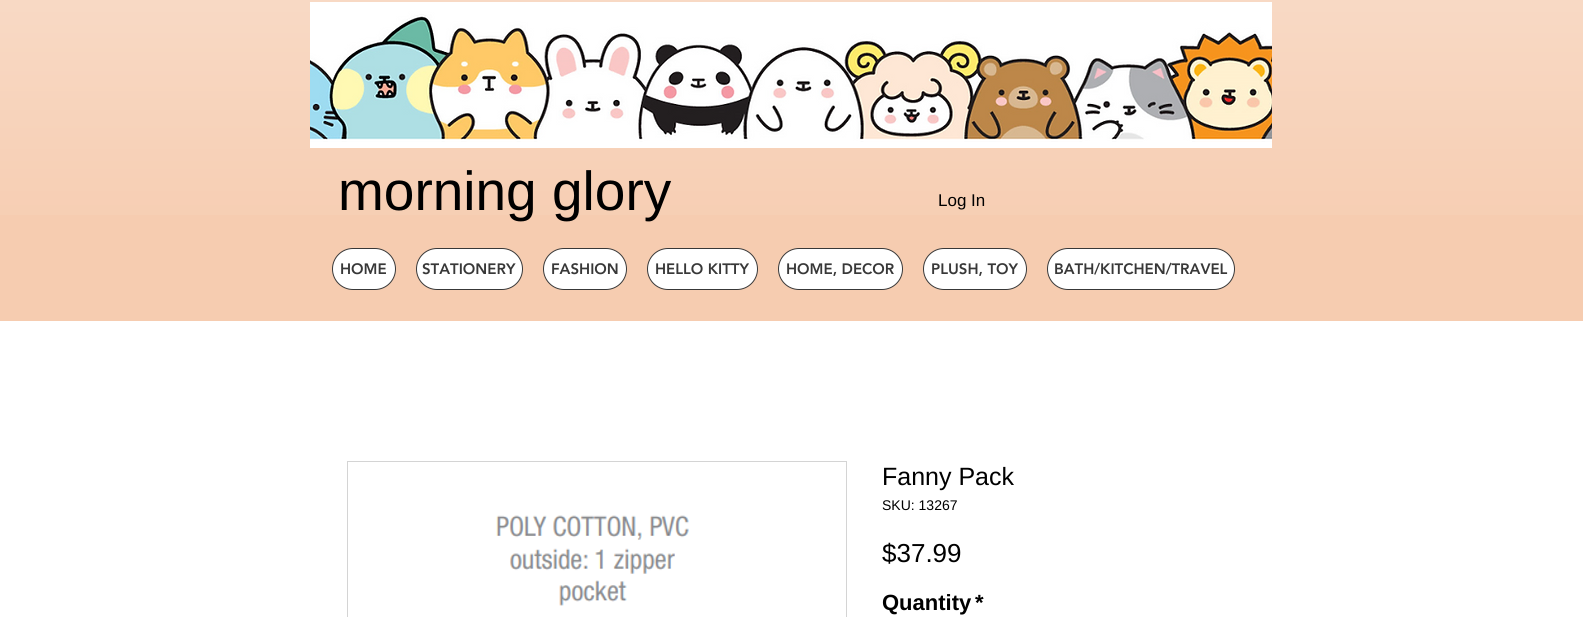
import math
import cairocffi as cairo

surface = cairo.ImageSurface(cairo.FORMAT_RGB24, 1583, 617)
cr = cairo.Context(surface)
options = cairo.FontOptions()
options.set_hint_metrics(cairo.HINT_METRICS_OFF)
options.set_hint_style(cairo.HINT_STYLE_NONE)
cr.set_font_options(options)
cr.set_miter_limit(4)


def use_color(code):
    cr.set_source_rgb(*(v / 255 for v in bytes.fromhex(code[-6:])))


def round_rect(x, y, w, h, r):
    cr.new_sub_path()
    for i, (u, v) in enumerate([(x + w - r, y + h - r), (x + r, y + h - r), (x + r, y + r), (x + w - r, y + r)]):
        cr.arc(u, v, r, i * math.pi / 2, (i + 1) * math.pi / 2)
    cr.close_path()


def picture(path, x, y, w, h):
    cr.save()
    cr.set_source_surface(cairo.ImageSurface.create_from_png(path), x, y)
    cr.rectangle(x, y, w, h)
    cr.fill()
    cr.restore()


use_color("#ffffff")
cr.paint()
use_color("#f6ccb0")
cr.rectangle(0, 0, 1583, 321)
cr.fill()
picture("img1.png", 0, 0, 1583, 215)
picture("img2.png", 310, 2, 962, 146)
cr.select_font_face("Liberation Sans")
cr.set_font_size(55)
use_color("#000000")
cr.move_to(338, 210)
cr.show_text("morning glory")
cr.set_font_size(17)
cr.move_to(938, 206)
cr.show_text("Log In")
use_color("#ffffff")
round_rect(332.5, 248.5, 63, 41, 20.5)
cr.fill_preserve()
use_color("#383838")
cr.set_line_width(1)
cr.stroke()
cr.select_font_face("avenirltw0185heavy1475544 Black")
cr.set_font_size(15)
cr.move_to(340, 274)
cr.show_text("HOME")
use_color("#ffffff")
round_rect(416.5, 248.5, 106, 41, 20.5)
cr.fill_preserve()
use_color("#383838")
cr.stroke()
cr.move_to(422, 274)
cr.show_text("STATIONERY")
use_color("#ffffff")
round_rect(543.5, 248.5, 83, 41, 20.5)
cr.fill_preserve()
use_color("#383838")
cr.stroke()
cr.move_to(551, 274)
cr.show_text("FASHION")
use_color("#ffffff")
round_rect(647.5, 248.5, 110, 41, 20.5)
cr.fill_preserve()
use_color("#383838")
cr.stroke()
cr.move_to(655, 274)
cr.show_text("HELLO KITTY")
use_color("#ffffff")
round_rect(778.5, 248.5, 124, 41, 20.5)
cr.fill_preserve()
use_color("#383838")
cr.stroke()
cr.move_to(786, 274)
cr.show_text("HOME, DECOR")
use_color("#ffffff")
round_rect(923.5, 248.5, 103, 41, 20.5)
cr.fill_preserve()
use_color("#383838")
cr.stroke()
cr.move_to(931, 274)
cr.show_text("PLUSH, TOY")
use_color("#ffffff")
round_rect(1047.5, 248.5, 187, 41, 20.5)
cr.fill_preserve()
use_color("#383838")
cr.stroke()
cr.move_to(1054, 274)
cr.show_text("BATH/KITCHEN/TRAVEL")
cr.rectangle(347.5, 461.5, 499, 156)
use_color("#d4d4d4")
cr.stroke()
picture("img3.png", 496, 515, 193, 91)
cr.select_font_face("Liberation Sans")
cr.set_font_size(25)
use_color("#000000")
cr.move_to(882, 485)
cr.show_text("Fanny Pack")
cr.set_font_size(14)
cr.move_to(882, 510)
cr.show_text("SKU: 13267")
cr.set_font_size(26)
cr.move_to(882, 562)
cr.show_text("$37.99")
cr.select_font_face("Liberation Sans", cairo.FONT_SLANT_NORMAL, cairo.FONT_WEIGHT_BOLD)
cr.set_font_size(22)
cr.move_to(882, 610)
cr.show_text("Quantity")
cr.move_to(975, 610)
cr.show_text("*")
surface.write_to_png("result.png")
